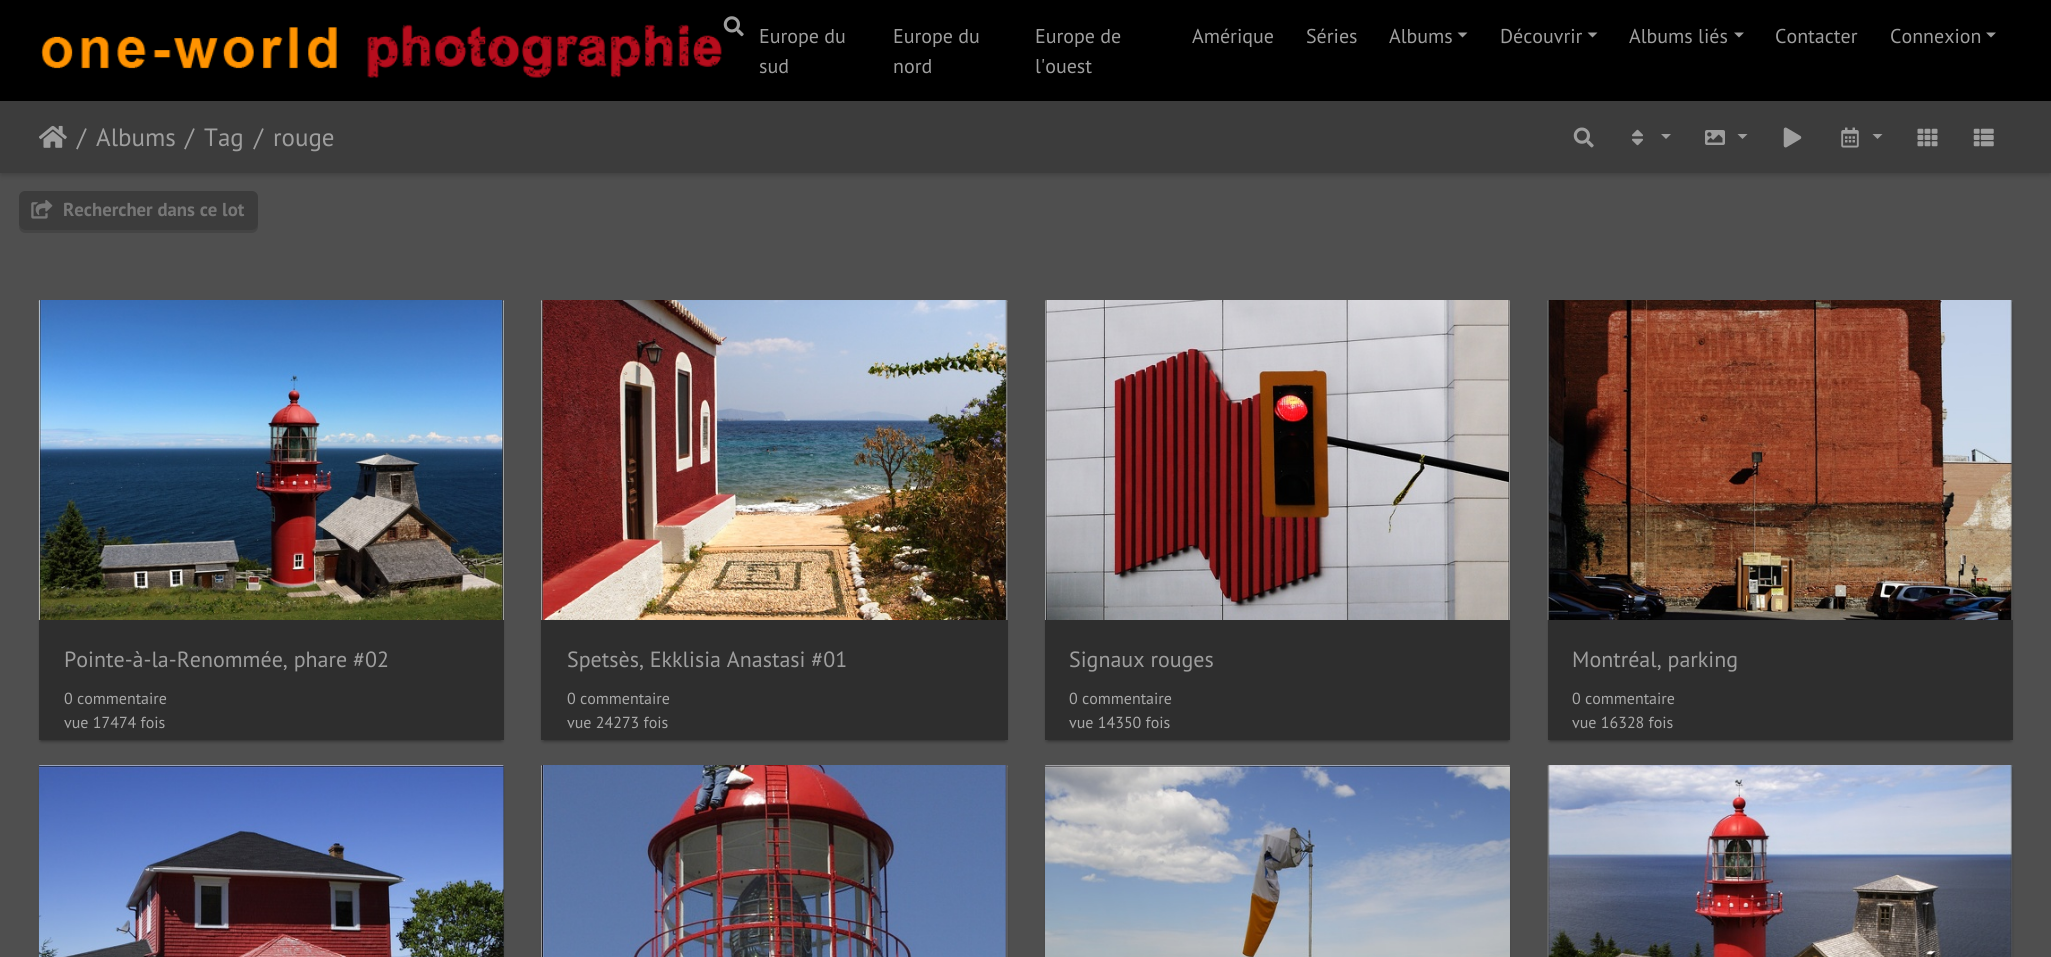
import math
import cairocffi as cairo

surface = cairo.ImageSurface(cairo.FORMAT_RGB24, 2051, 957)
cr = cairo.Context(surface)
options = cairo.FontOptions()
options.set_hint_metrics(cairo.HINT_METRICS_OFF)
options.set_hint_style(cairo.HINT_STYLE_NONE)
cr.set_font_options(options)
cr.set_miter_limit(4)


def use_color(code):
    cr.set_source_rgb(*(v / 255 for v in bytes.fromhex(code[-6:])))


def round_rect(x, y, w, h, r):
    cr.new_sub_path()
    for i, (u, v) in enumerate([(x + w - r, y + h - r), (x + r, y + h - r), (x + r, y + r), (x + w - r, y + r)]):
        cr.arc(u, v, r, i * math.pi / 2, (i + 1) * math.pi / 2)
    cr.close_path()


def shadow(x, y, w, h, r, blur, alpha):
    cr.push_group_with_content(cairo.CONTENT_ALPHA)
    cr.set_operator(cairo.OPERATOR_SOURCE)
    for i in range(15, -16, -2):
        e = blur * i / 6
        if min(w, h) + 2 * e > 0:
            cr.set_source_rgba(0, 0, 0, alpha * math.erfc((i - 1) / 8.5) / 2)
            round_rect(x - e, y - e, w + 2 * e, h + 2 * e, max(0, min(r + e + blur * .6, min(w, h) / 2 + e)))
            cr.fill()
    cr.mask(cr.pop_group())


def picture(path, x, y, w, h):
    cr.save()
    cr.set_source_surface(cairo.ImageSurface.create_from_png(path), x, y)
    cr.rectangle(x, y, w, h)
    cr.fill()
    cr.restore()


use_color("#4f4f4f")
cr.paint()
use_color("#000000")
shadow(1, 106, 2049, 69, 0, 3, 0.2)
use_color("#000000")
cr.rectangle(0, 0, 2051, 101)
cr.fill()
picture("img1.png", 41, 24, 681, 54)
picture("img2.png", 723, 16, 21, 21)
cr.select_font_face("PT Sans")
cr.set_font_size(20)
use_color("#9e9e9e")
cr.move_to(759, 43)
cr.show_text("Europe du")
cr.move_to(759, 73)
cr.show_text("sud")
cr.move_to(893, 43)
cr.show_text("Europe du")
cr.move_to(893, 73)
cr.show_text("nord")
cr.move_to(1035, 43)
cr.show_text("Europe de")
cr.move_to(1035, 73)
cr.show_text("l'ouest")
cr.move_to(1192, 43)
cr.show_text("Amérique")
cr.move_to(1306, 43)
cr.show_text("Séries")
cr.move_to(1389, 43)
cr.show_text("Albums")
cr.new_path()
cr.move_to(1457.5, 32.5)
cr.line_to(1467.5, 32.5)
cr.line_to(1462.5, 37.5)
cr.close_path()
cr.fill()
cr.move_to(1500, 43)
cr.show_text("Découvrir")
cr.new_path()
cr.move_to(1587.5, 32.5)
cr.line_to(1597.5, 32.5)
cr.line_to(1592.5, 37.5)
cr.close_path()
cr.fill()
cr.move_to(1629, 43)
cr.show_text("Albums liés")
cr.new_path()
cr.move_to(1734, 32.5)
cr.line_to(1744, 32.5)
cr.line_to(1739, 37.5)
cr.close_path()
cr.fill()
cr.move_to(1775, 43)
cr.show_text("Contacter")
cr.move_to(1890, 43)
cr.show_text("Connexion")
cr.new_path()
cr.move_to(1986, 32.5)
cr.line_to(1996, 32.5)
cr.line_to(1991, 37.5)
cr.close_path()
cr.fill()
use_color("#3c3c3c")
cr.rectangle(0, 101, 2051, 72)
cr.fill()
picture("img3.png", 39, 125, 28, 23)
cr.set_font_size(25)
use_color("#9e9e9e")
cr.move_to(77, 146)
cr.show_text("/")
cr.move_to(96, 146)
cr.show_text("Albums")
cr.move_to(185, 146)
cr.show_text("/")
cr.move_to(204, 146)
cr.show_text("Tag")
cr.move_to(254, 146)
cr.show_text("/")
cr.move_to(273, 146)
cr.show_text("rouge")
picture("img4.png", 1573, 127, 21, 21)
picture("img5.png", 1632, 129, 11, 17)
cr.new_path()
cr.move_to(1661, 134)
cr.line_to(1671, 134)
cr.line_to(1666, 139)
cr.close_path()
cr.fill()
picture("img6.png", 1705, 130, 20, 15)
cr.new_path()
cr.move_to(1737.5, 134)
cr.line_to(1747.5, 134)
cr.line_to(1742.5, 139)
cr.close_path()
cr.fill()
picture("img7.png", 1783, 127, 19, 21)
picture("img8.png", 1841, 127, 18, 21)
cr.new_path()
cr.move_to(1872.5, 134)
cr.line_to(1882.5, 134)
cr.line_to(1877.5, 139)
cr.close_path()
cr.fill()
picture("img9.png", 1917, 128, 21, 19)
picture("img10.png", 1973, 128, 21, 19)
use_color("#444444")
cr.new_path()
cr.move_to(19, 226)
cr.line_to(19, 227)
cr.curve_to(19, 230, 22, 233, 25, 233)
cr.line_to(252, 233)
cr.curve_to(255, 233, 258, 230, 258, 227)
cr.line_to(258, 200)
cr.line_to(258, 198)
cr.line_to(258, 224)
cr.curve_to(258, 227, 255, 230, 251, 230)
cr.line_to(25, 230)
cr.curve_to(22, 230, 20, 228, 19, 226)
cr.close_path()
cr.fill()
use_color("#3c3c3c")
round_rect(19, 191, 239, 39, 6)
cr.fill()
picture("img11.png", 31, 200, 22, 19)
cr.select_font_face("PT Sans", cairo.FONT_SLANT_NORMAL, cairo.FONT_WEIGHT_BOLD)
cr.set_font_size(18.75)
use_color("#777777")
cr.move_to(63, 216)
cr.show_text("Rechercher dans ce lot")
use_color("#000000")
shadow(41, 306, 460, 435, 0, 0.5, 0.2)
shadow(39, 303, 465, 440, 2.5, 1, 0.14)
use_color("#2e2e2e")
round_rect(39, 300, 465, 440, 2.5)
cr.fill()
picture("img12.png", 38, 300, 466, 320)
cr.rectangle(39, 738, 465, 2)
cr.fill()
cr.select_font_face("PT Sans")
cr.set_font_size(22)
use_color("#9e9e9e")
cr.move_to(64, 667)
cr.show_text("Pointe-à-la-Renommée, phare #02")
cr.set_font_size(16)
use_color("#a9a9a9")
cr.move_to(64, 704)
cr.show_text("0 commentaire")
cr.move_to(64, 728)
cr.show_text("vue 17474 fois")
use_color("#000000")
shadow(544, 306, 461, 435, 0, 0.5, 0.2)
shadow(541, 303, 467, 440, 2.5, 1, 0.14)
use_color("#2e2e2e")
round_rect(541, 300, 467, 440, 2.5)
cr.fill()
picture("img13.png", 541, 300, 467, 320)
cr.rectangle(541, 738, 467, 2)
cr.fill()
cr.set_font_size(22)
use_color("#9e9e9e")
cr.move_to(567, 667)
cr.show_text("Spetsès, Ekklisia Anastasi #01")
cr.set_font_size(16)
use_color("#a9a9a9")
cr.move_to(567, 704)
cr.show_text("0 commentaire")
cr.move_to(567, 728)
cr.show_text("vue 24273 fois")
use_color("#000000")
shadow(1048, 306, 460, 435, 0, 0.5, 0.2)
shadow(1045, 303, 465, 440, 2.5, 1, 0.14)
picture("img14.png", 1045, 300, 465, 320)
use_color("#2e2e2e")
cr.rectangle(1045, 620, 465, 120)
cr.fill()
cr.set_font_size(22)
use_color("#9e9e9e")
cr.move_to(1069, 667)
cr.show_text("Signaux rouges")
cr.set_font_size(16)
use_color("#a9a9a9")
cr.move_to(1069, 704)
cr.show_text("0 commentaire")
cr.move_to(1069, 728)
cr.show_text("vue 14350 fois")
use_color("#000000")
shadow(1550, 306, 460, 435, 0, 0.5, 0.2)
shadow(1548, 303, 465, 440, 2.5, 1, 0.14)
use_color("#2e2e2e")
round_rect(1548, 300, 465, 440, 2.5)
cr.fill()
picture("img15.png", 1547, 300, 466, 320)
cr.rectangle(1548, 738, 465, 2)
cr.fill()
cr.set_font_size(22)
use_color("#9e9e9e")
cr.move_to(1572, 667)
cr.show_text("Montréal, parking")
cr.set_font_size(16)
use_color("#a9a9a9")
cr.move_to(1572, 704)
cr.show_text("0 commentaire")
cr.move_to(1572, 728)
cr.show_text("vue 16328 fois")
use_color("#000000")
shadow(39, 768, 465, 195, 2.5, 1, 0.14)
use_color("#2e2e2e")
round_rect(39, 765, 465, 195, 2.5)
cr.fill()
picture("img16.png", 38, 765, 466, 192)
use_color("#000000")
shadow(541, 768, 467, 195, 2.5, 1, 0.14)
use_color("#2e2e2e")
round_rect(541, 765, 467, 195, 2.5)
cr.fill()
picture("img17.png", 541, 765, 467, 192)
use_color("#000000")
shadow(1045, 768, 465, 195, 2.5, 1, 0.14)
picture("img18.png", 1045, 765, 465, 192)
shadow(1548, 768, 465, 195, 2.5, 1, 0.14)
use_color("#2e2e2e")
round_rect(1548, 765, 465, 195, 2.5)
cr.fill()
picture("img19.png", 1547, 765, 466, 192)
surface.write_to_png("result.png")
